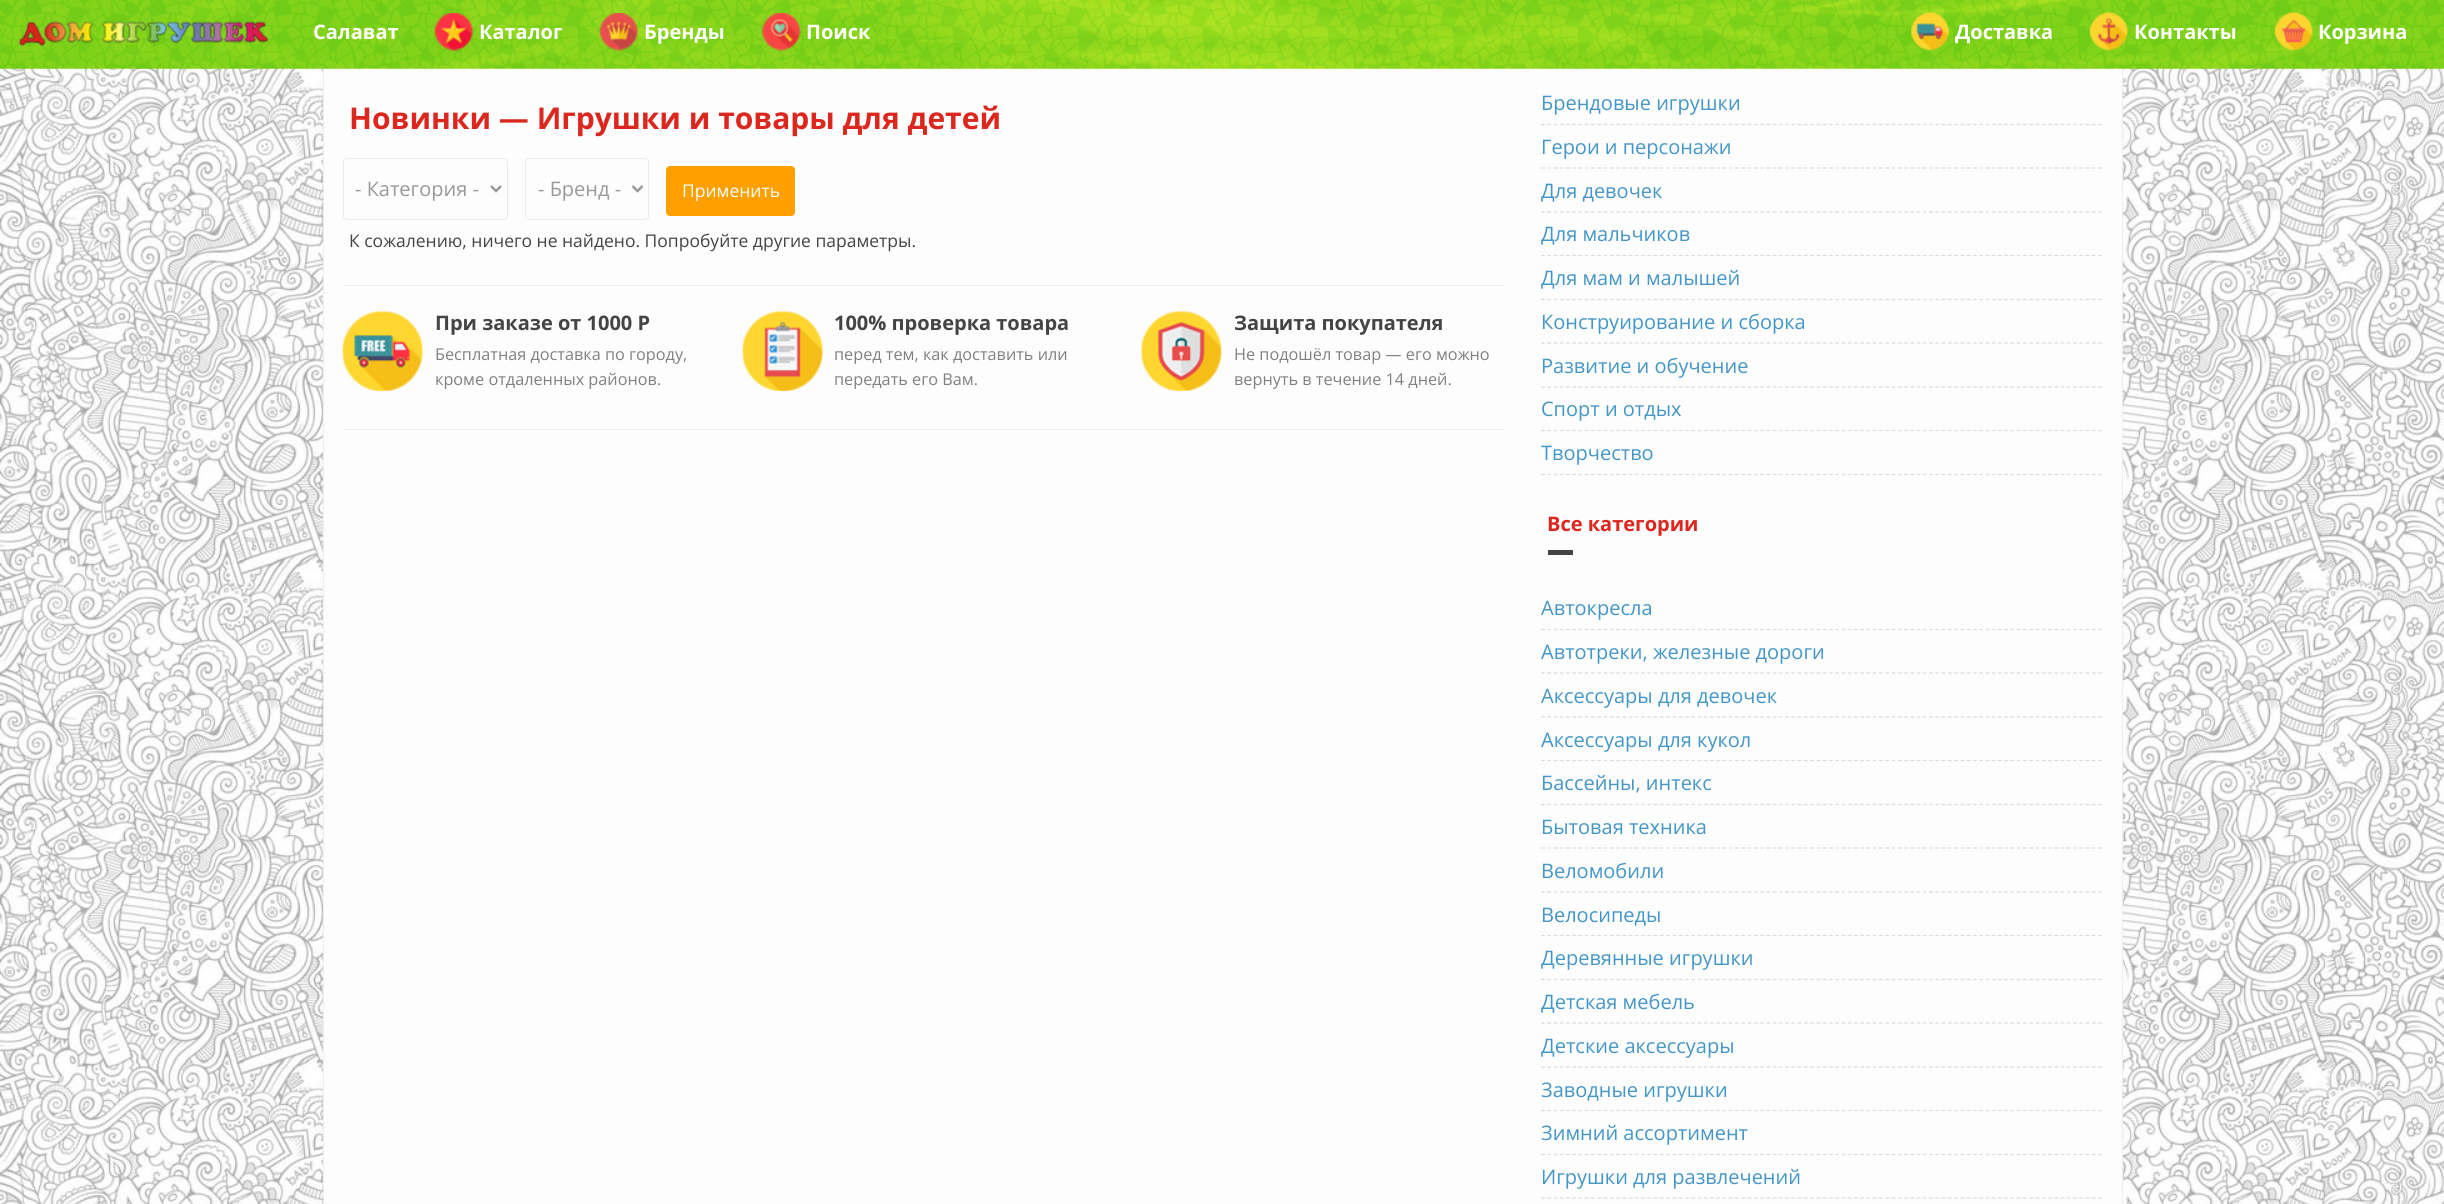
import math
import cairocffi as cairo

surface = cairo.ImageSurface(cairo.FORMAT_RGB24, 2444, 1204)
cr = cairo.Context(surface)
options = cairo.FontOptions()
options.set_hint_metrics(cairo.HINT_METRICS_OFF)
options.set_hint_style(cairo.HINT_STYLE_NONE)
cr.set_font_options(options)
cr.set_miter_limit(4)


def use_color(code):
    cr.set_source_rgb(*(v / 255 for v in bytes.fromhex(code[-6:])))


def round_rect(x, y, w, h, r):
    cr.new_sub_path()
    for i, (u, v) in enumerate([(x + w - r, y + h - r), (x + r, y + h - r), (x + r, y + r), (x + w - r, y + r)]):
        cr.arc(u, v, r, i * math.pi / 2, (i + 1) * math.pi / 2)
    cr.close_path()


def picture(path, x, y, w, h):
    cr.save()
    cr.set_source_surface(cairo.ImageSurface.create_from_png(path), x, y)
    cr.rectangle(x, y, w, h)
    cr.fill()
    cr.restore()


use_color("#ffffff")
cr.paint()
picture("img9.png", 0, 68, 2444, 1136)
use_color("#fdfdfd")
cr.rectangle(323, 68, 1800, 1136)
cr.fill()
cr.rectangle(323.5, 61.5, 1799, 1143)
use_color("#eeeeee")
cr.set_line_width(1)
cr.stroke()
picture("img1.png", 0, 0, 2444, 69)
picture("img2.png", 19, 20, 250, 27)
cr.select_font_face("Open Sans", cairo.FONT_SLANT_NORMAL, cairo.FONT_WEIGHT_BOLD)
cr.set_font_size(20)
use_color("#ffffff")
cr.move_to(313, 39)
cr.show_text("Салават")
picture("img3.png", 434, 13, 39, 38)
cr.move_to(479, 39)
cr.show_text("Каталог")
picture("img4.png", 599, 13, 39, 38)
cr.move_to(644, 39)
cr.show_text("Бренды")
picture("img5.png", 761, 13, 40, 38)
cr.move_to(806, 39)
cr.show_text("Поиск")
picture("img6.png", 1911, 12, 38, 39)
cr.move_to(1955, 39)
cr.show_text("Доставка")
picture("img7.png", 2090, 12, 38, 39)
cr.move_to(2134, 39)
cr.show_text("Контакты")
picture("img8.png", 2275, 12, 38, 39)
cr.move_to(2318, 39)
cr.show_text("Корзина")
cr.set_font_size(30)
use_color("#dc271e")
cr.move_to(349, 129)
cr.show_text("Новинки — Игрушки и товары для детей")
round_rect(343.5, 158.5, 164, 61, 3.5)
use_color("#eaeaea")
cr.stroke()
cr.new_path()
cr.move_to(491, 186)
cr.line_to(496, 191)
cr.line_to(501, 186)
use_color("#999999")
cr.set_line_width(2.5)
cr.stroke()
cr.select_font_face("Open Sans")
cr.set_font_size(20)
cr.move_to(355, 196)
cr.show_text("- Категория -")
round_rect(525.5, 158.5, 123, 61, 3.5)
use_color("#eaeaea")
cr.set_line_width(1)
cr.stroke()
cr.new_path()
cr.move_to(632.5, 186)
cr.line_to(637.5, 191)
cr.line_to(642.5, 186)
use_color("#999999")
cr.set_line_width(2.5)
cr.stroke()
cr.move_to(538, 196)
cr.show_text("- Бренд -")
use_color("#ffa000")
round_rect(666, 166, 129, 50, 4)
cr.fill()
cr.set_font_size(17.5)
use_color("#ffffff")
cr.move_to(682, 197)
cr.show_text("Применить")
use_color("#444444")
cr.move_to(349, 247)
cr.show_text("К сожалению, ничего не найдено. Попробуйте другие параметры.")
use_color("#eeeeee")
cr.rectangle(343, 285, 1161, 1)
cr.fill()
picture("img10.png", 342, 311, 81, 81)
cr.select_font_face("Open Sans", cairo.FONT_SLANT_NORMAL, cairo.FONT_WEIGHT_BOLD)
cr.set_font_size(20)
use_color("#444444")
cr.move_to(435, 330)
cr.show_text("При заказе от 1000 Р")
cr.select_font_face("Open Sans")
cr.set_font_size(16.25)
use_color("#808080")
cr.move_to(435, 360)
cr.show_text("Бесплатная доставка по городу,")
cr.move_to(435, 385)
cr.show_text("кроме отдаленных районов.")
picture("img11.png", 742, 311, 81, 81)
cr.select_font_face("Open Sans", cairo.FONT_SLANT_NORMAL, cairo.FONT_WEIGHT_BOLD)
cr.set_font_size(20)
use_color("#444444")
cr.move_to(834, 330)
cr.show_text("100% проверка товара")
cr.select_font_face("Open Sans")
cr.set_font_size(16.25)
use_color("#808080")
cr.move_to(834, 360)
cr.show_text("перед тем, как доставить или")
cr.move_to(834, 385)
cr.show_text("передать его Вам.")
picture("img12.png", 1141, 311, 81, 81)
cr.select_font_face("Open Sans", cairo.FONT_SLANT_NORMAL, cairo.FONT_WEIGHT_BOLD)
cr.set_font_size(20)
use_color("#444444")
cr.move_to(1234, 330)
cr.show_text("Защита покупателя")
cr.select_font_face("Open Sans")
cr.set_font_size(16.25)
use_color("#808080")
cr.move_to(1234, 360)
cr.show_text("Не подошёл товар — его можно")
cr.move_to(1234, 385)
cr.show_text("вернуть в течение 14 дней.")
use_color("#eeeeee")
cr.rectangle(343, 429, 1161, 1)
cr.fill()
cr.new_path()
cr.move_to(1541, 124.5)
cr.line_to(2102.5, 124.5)
use_color("#dddddd")
cr.set_line_width(1.2)
cr.set_dash([3.75, 2.51])
cr.stroke()
cr.set_font_size(20)
use_color("#4396c7")
cr.move_to(1541, 110)
cr.show_text("Брендовые игрушки")
cr.new_path()
cr.move_to(1541, 168)
cr.line_to(2102.5, 168)
use_color("#dddddd")
cr.stroke()
use_color("#4396c7")
cr.move_to(1541, 154)
cr.show_text("Герои и персонажи")
cr.new_path()
cr.move_to(1541, 212)
cr.line_to(2102.5, 212)
use_color("#dddddd")
cr.stroke()
use_color("#4396c7")
cr.move_to(1541, 198)
cr.show_text("Для девочек")
cr.new_path()
cr.move_to(1541, 255.5)
cr.line_to(2102.5, 255.5)
use_color("#dddddd")
cr.stroke()
use_color("#4396c7")
cr.move_to(1541, 241)
cr.show_text("Для мальчиков")
cr.new_path()
cr.move_to(1541, 299.5)
cr.line_to(2102.5, 299.5)
use_color("#dddddd")
cr.stroke()
use_color("#4396c7")
cr.move_to(1541, 285)
cr.show_text("Для мам и малышей")
cr.new_path()
cr.move_to(1541, 343)
cr.line_to(2102.5, 343)
use_color("#dddddd")
cr.stroke()
use_color("#4396c7")
cr.move_to(1541, 329)
cr.show_text("Конструирование и сборка")
cr.new_path()
cr.move_to(1541, 387)
cr.line_to(2102.5, 387)
use_color("#dddddd")
cr.stroke()
use_color("#4396c7")
cr.move_to(1541, 373)
cr.show_text("Развитие и обучение")
cr.new_path()
cr.move_to(1541, 430.5)
cr.line_to(2102.5, 430.5)
use_color("#dddddd")
cr.stroke()
use_color("#4396c7")
cr.move_to(1541, 416)
cr.show_text("Спорт и отдых")
cr.new_path()
cr.move_to(1541, 474.5)
cr.line_to(2102.5, 474.5)
use_color("#dddddd")
cr.stroke()
use_color("#4396c7")
cr.move_to(1541, 460)
cr.show_text("Творчество")
cr.select_font_face("Open Sans", cairo.FONT_SLANT_NORMAL, cairo.FONT_WEIGHT_BOLD)
use_color("#dc271e")
cr.move_to(1547, 531)
cr.show_text("Все категории")
use_color("#444444")
cr.rectangle(1548, 550, 25, 5)
cr.fill()
cr.new_path()
cr.move_to(1541, 629.5)
cr.line_to(2102.5, 629.5)
use_color("#dddddd")
cr.stroke()
cr.select_font_face("Open Sans")
use_color("#4396c7")
cr.move_to(1541, 615)
cr.show_text("Автокресла")
cr.new_path()
cr.move_to(1541, 673)
cr.line_to(2102.5, 673)
use_color("#dddddd")
cr.stroke()
use_color("#4396c7")
cr.move_to(1541, 659)
cr.show_text("Автотреки, железные дороги")
cr.new_path()
cr.move_to(1541, 717)
cr.line_to(2102.5, 717)
use_color("#dddddd")
cr.stroke()
use_color("#4396c7")
cr.move_to(1541, 703)
cr.show_text("Аксессуары для девочек")
cr.new_path()
cr.move_to(1541, 760.5)
cr.line_to(2102.5, 760.5)
use_color("#dddddd")
cr.stroke()
use_color("#4396c7")
cr.move_to(1541, 747)
cr.show_text("Аксессуары для кукол")
cr.new_path()
cr.move_to(1541, 804.5)
cr.line_to(2102.5, 804.5)
use_color("#dddddd")
cr.stroke()
use_color("#4396c7")
cr.move_to(1541, 790)
cr.show_text("Бассейны, интекс")
cr.new_path()
cr.move_to(1541, 848)
cr.line_to(2102.5, 848)
use_color("#dddddd")
cr.stroke()
use_color("#4396c7")
cr.move_to(1541, 834)
cr.show_text("Бытовая техника")
cr.new_path()
cr.move_to(1541, 892)
cr.line_to(2102.5, 892)
use_color("#dddddd")
cr.stroke()
use_color("#4396c7")
cr.move_to(1541, 878)
cr.show_text("Веломобили")
cr.new_path()
cr.move_to(1541, 935.5)
cr.line_to(2102.5, 935.5)
use_color("#dddddd")
cr.stroke()
use_color("#4396c7")
cr.move_to(1541, 922)
cr.show_text("Велосипеды")
cr.new_path()
cr.move_to(1541, 979.5)
cr.line_to(2102.5, 979.5)
use_color("#dddddd")
cr.stroke()
use_color("#4396c7")
cr.move_to(1541, 965)
cr.show_text("Деревянные игрушки")
cr.new_path()
cr.move_to(1541, 1023)
cr.line_to(2102.5, 1023)
use_color("#dddddd")
cr.stroke()
use_color("#4396c7")
cr.move_to(1541, 1009)
cr.show_text("Детская мебель")
cr.new_path()
cr.move_to(1541, 1067)
cr.line_to(2102.5, 1067)
use_color("#dddddd")
cr.stroke()
use_color("#4396c7")
cr.move_to(1541, 1053)
cr.show_text("Детские аксессуары")
cr.new_path()
cr.move_to(1541, 1110.5)
cr.line_to(2102.5, 1110.5)
use_color("#dddddd")
cr.stroke()
use_color("#4396c7")
cr.move_to(1541, 1097)
cr.show_text("Заводные игрушки")
cr.new_path()
cr.move_to(1541, 1154.5)
cr.line_to(2102.5, 1154.5)
use_color("#dddddd")
cr.stroke()
use_color("#4396c7")
cr.move_to(1541, 1140)
cr.show_text("Зимний ассортимент")
cr.new_path()
cr.move_to(1541, 1198)
cr.line_to(2102.5, 1198)
use_color("#dddddd")
cr.stroke()
use_color("#4396c7")
cr.move_to(1541, 1184)
cr.show_text("Игрушки для развлечений")
surface.write_to_png("result.png")
